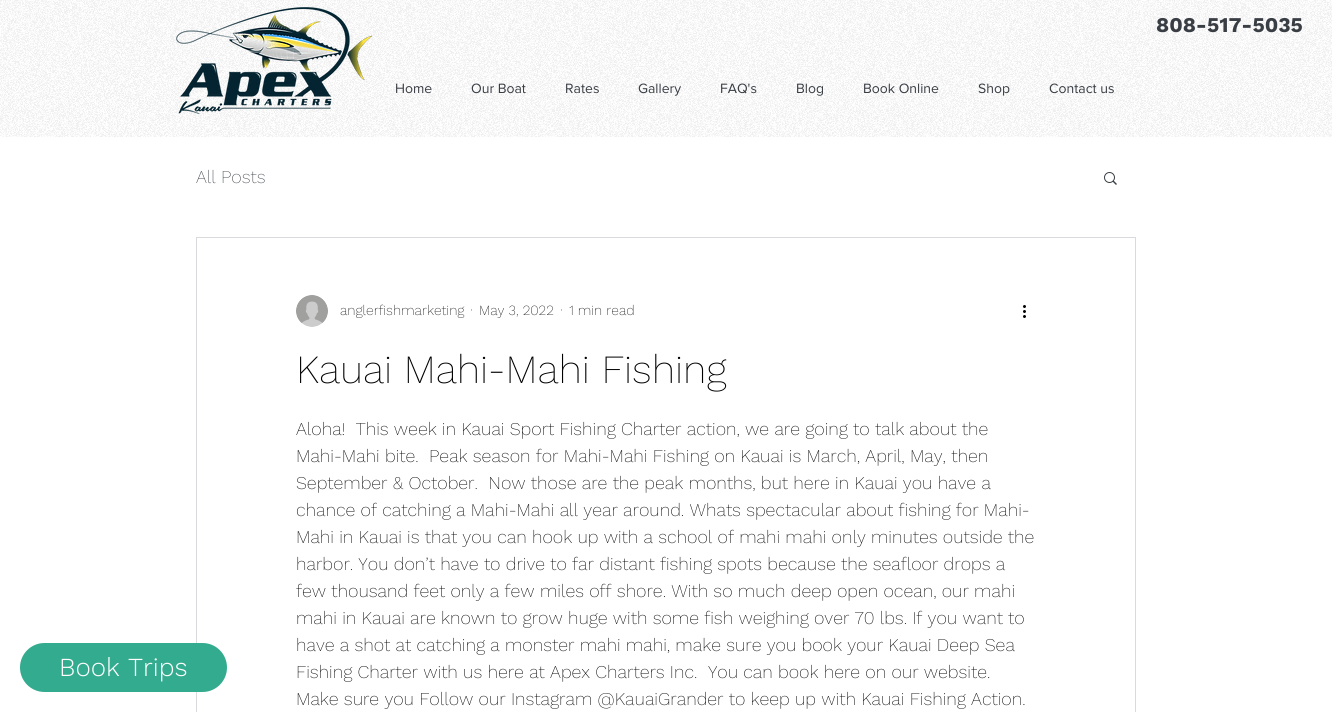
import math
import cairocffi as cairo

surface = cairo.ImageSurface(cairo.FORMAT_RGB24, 1332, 712)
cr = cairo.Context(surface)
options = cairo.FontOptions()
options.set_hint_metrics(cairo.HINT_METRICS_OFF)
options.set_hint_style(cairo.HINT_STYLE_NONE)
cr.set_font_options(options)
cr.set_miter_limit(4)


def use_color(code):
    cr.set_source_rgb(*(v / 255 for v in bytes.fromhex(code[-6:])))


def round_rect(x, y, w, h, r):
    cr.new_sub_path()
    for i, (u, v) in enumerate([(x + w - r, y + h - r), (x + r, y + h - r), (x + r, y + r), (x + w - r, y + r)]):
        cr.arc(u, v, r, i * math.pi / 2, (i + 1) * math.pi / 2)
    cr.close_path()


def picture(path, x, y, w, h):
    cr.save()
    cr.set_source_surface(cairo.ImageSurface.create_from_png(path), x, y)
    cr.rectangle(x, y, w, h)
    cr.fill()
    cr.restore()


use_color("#ffffff")
cr.paint()
picture("img1.png", 0, 0, 1332, 137)
picture("img2.png", 176, 7, 196, 107)
cr.select_font_face("Work Sans", cairo.FONT_SLANT_NORMAL, cairo.FONT_WEIGHT_BOLD)
cr.set_font_size(21)
use_color("#393e44")
cr.move_to(1156, 32)
cr.show_text("808-517-5035")
cr.select_font_face("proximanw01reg")
cr.set_font_size(14)
cr.move_to(395, 93)
cr.show_text("Home")
cr.move_to(471, 93)
cr.show_text("Our Boat")
cr.move_to(565, 93)
cr.show_text("Rates")
cr.move_to(638, 93)
cr.show_text("Gallery")
cr.move_to(720, 93)
cr.show_text("FAQ's")
cr.move_to(796, 93)
cr.show_text("Blog")
cr.move_to(863, 93)
cr.show_text("Book Online")
cr.move_to(978, 93)
cr.show_text("Shop")
cr.move_to(1049, 93)
cr.show_text("Contact us")
cr.rectangle(196.5, 237.5, 939, 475)
use_color("#d8dade")
cr.set_line_width(1)
cr.stroke()
use_color("#33ab8e")
round_rect(20, 643, 207, 49, 24.5)
cr.fill()
cr.select_font_face("Work Sans Light")
cr.set_font_size(26)
use_color("#ffffff")
cr.move_to(59, 676)
cr.show_text("Book Trips")
cr.select_font_face("Work Sans ExtraLight")
cr.set_font_size(18)
use_color("#393e44")
cr.move_to(196, 183)
cr.show_text("All Posts")
picture("img3.png", 1104, 172, 13, 13)
picture("img4.png", 296, 295, 32, 32)
cr.set_font_size(14)
use_color("#000000")
cr.move_to(340, 315)
cr.show_text("anglerfishmarketing")
cr.move_to(470, 315)
cr.show_text("·")
cr.move_to(479, 315)
cr.show_text("May 3, 2022")
cr.move_to(560, 315)
cr.show_text("·")
cr.move_to(569, 315)
cr.show_text("1 min read")
picture("img5.png", 1023, 305, 3, 13)
cr.set_font_size(40)
cr.move_to(296, 383)
cr.show_text("Kauai Mahi-Mahi Fishing")
cr.set_font_size(18)
cr.move_to(296, 435)
cr.show_text("Aloha!  This week in Kauai Sport Fishing Charter action, we are going to talk about the")
cr.move_to(296, 462)
cr.show_text("Mahi-Mahi bite.  Peak season for Mahi-Mahi Fishing on Kauai is March, April, May, then")
cr.move_to(296, 489)
cr.show_text("September & October.  Now those are the peak months, but here in Kauai you have a")
cr.move_to(296, 516)
cr.show_text("chance of catching a Mahi-Mahi all year around. Whats spectacular about fishing for Mahi-")
cr.move_to(296, 543)
cr.show_text("Mahi in Kauai is that you can hook up with a school of mahi mahi only minutes outside the")
cr.move_to(296, 570)
cr.show_text("harbor. You don’t have to drive to far distant fishing spots because the seafloor drops a")
cr.move_to(296, 597)
cr.show_text("few thousand feet only a few miles off shore. With so much deep open ocean, our mahi")
cr.move_to(296, 624)
cr.show_text("mahi in Kauai are known to grow huge with some fish weighing over 70 lbs. If you want to")
cr.move_to(296, 651)
cr.show_text("have a shot at catching a monster mahi mahi, make sure you book your Kauai Deep Sea")
cr.move_to(296, 678)
cr.show_text("Fishing Charter with us here at Apex Charters Inc.  You can book here on our website.")
cr.move_to(296, 705)
cr.show_text("Make sure you Follow our Instagram @KauaiGrander to keep up with Kauai Fishing Action.")
surface.write_to_png("result.png")
